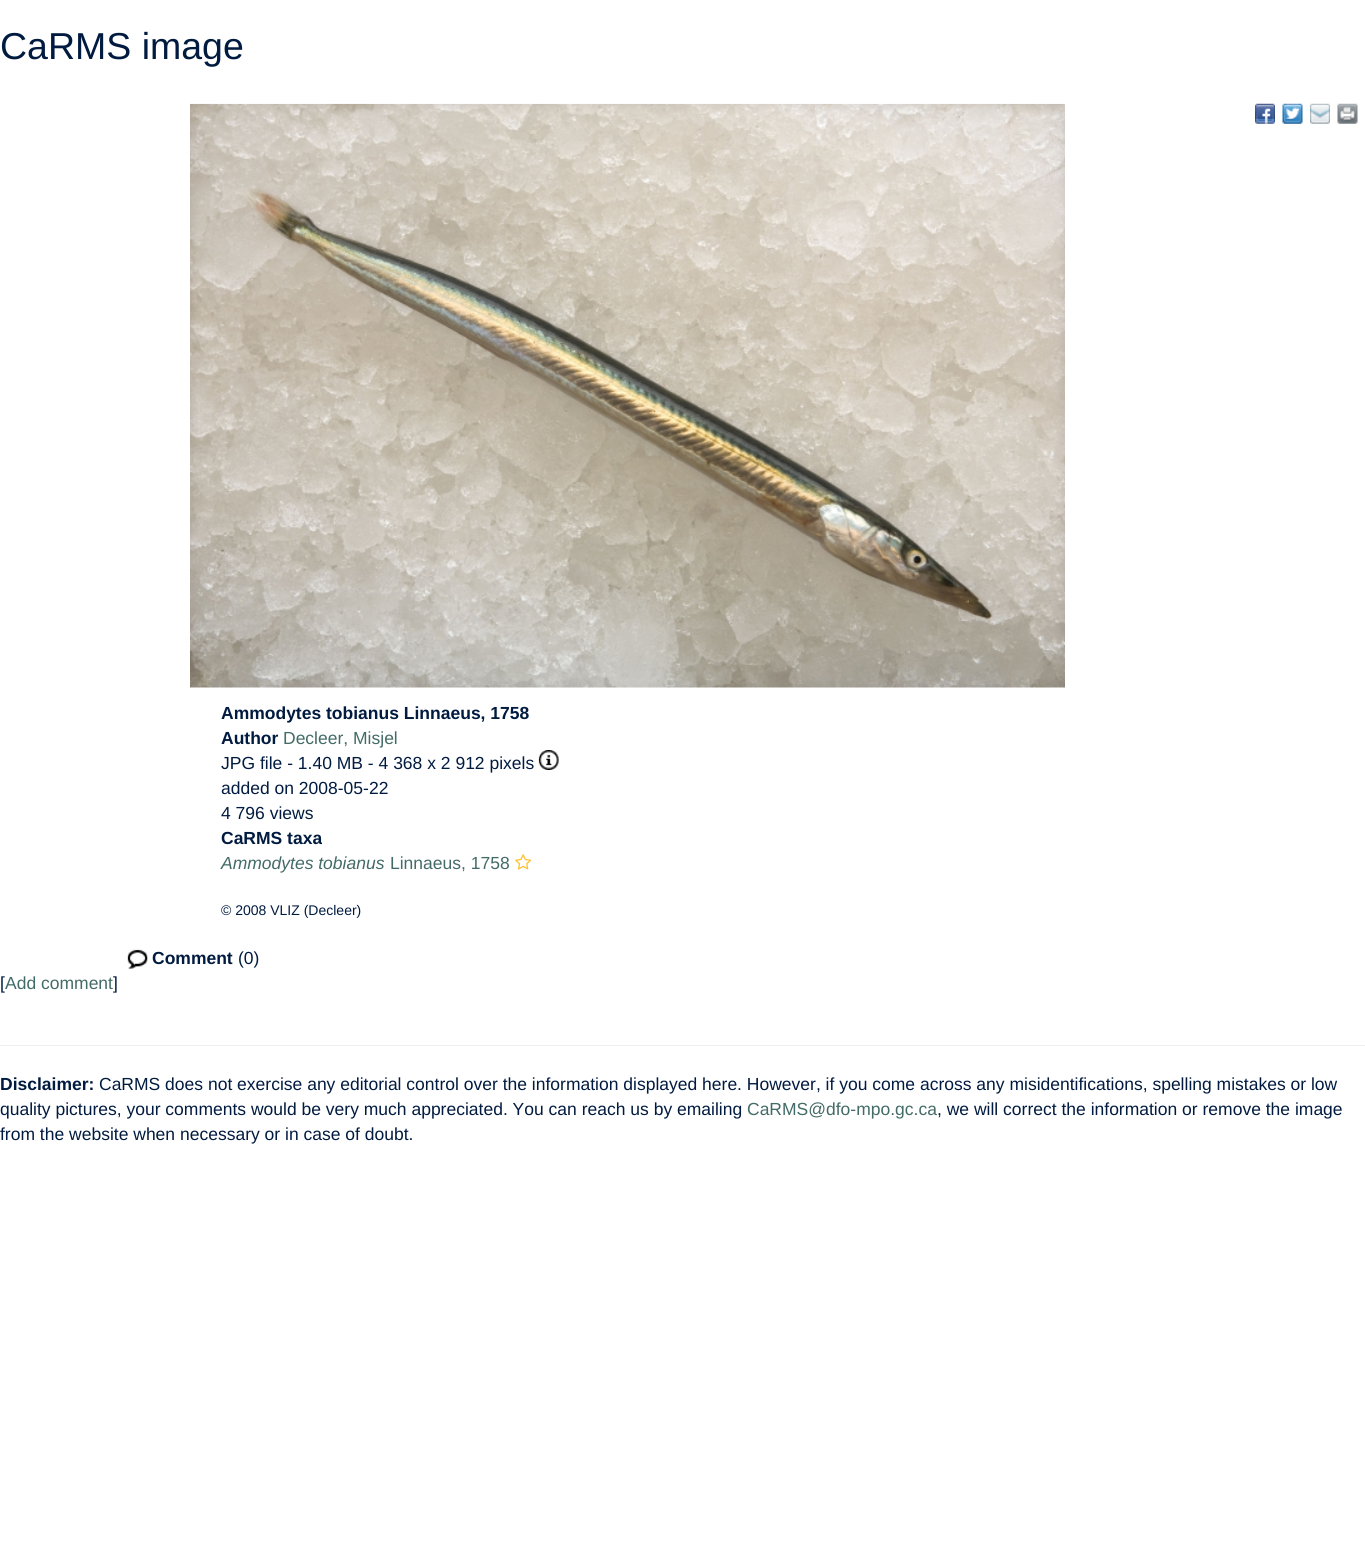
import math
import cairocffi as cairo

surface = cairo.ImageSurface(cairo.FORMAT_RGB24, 1365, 1560)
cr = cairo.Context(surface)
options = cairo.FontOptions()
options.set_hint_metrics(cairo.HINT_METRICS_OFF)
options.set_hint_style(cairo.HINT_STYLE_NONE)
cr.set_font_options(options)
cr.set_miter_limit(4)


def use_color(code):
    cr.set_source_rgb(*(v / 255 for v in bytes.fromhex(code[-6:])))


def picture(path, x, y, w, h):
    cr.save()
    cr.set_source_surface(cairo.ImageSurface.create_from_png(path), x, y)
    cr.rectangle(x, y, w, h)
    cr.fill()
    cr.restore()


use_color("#ffffff")
cr.paint()
cr.select_font_face("Liberation Sans")
cr.set_font_size(37.5)
use_color("#011b40")
cr.move_to(0, 59)
cr.show_text("CaRMS image")
picture("img1.png", 1255, 103, 20, 21)
picture("img2.png", 1282, 103, 21, 21)
picture("img3.png", 1310, 103, 20, 21)
picture("img4.png", 1337, 103, 21, 21)
picture("img5.png", 190, 103, 875, 585)
cr.select_font_face("Liberation Sans", cairo.FONT_SLANT_NORMAL, cairo.FONT_WEIGHT_BOLD)
cr.set_font_size(17.5)
cr.move_to(221, 719)
cr.show_text("Ammodytes tobianus Linnaeus, 1758")
cr.move_to(221, 744)
cr.show_text("Author")
cr.select_font_face("Liberation Sans")
use_color("#436b67")
cr.move_to(283, 744)
cr.show_text("Decleer, Misjel")
use_color("#011b40")
cr.move_to(221, 769)
cr.show_text("JPG file - 1.40 MB - 4 368 x 2 912 pixels")
picture("img6.png", 538, 750, 21, 20)
cr.move_to(221, 794)
cr.show_text("added on 2008-05-22")
cr.move_to(221, 819)
cr.show_text("4 796 views")
cr.select_font_face("Liberation Sans", cairo.FONT_SLANT_NORMAL, cairo.FONT_WEIGHT_BOLD)
cr.move_to(221, 844)
cr.show_text("CaRMS taxa")
cr.select_font_face("Liberation Sans", cairo.FONT_SLANT_ITALIC)
use_color("#436b67")
cr.move_to(221, 869)
cr.show_text("Ammodytes tobianus")
cr.select_font_face("Liberation Sans")
cr.move_to(390, 869)
cr.show_text("Linnaeus, 1758")
picture("img7.png", 515, 854, 17, 16)
cr.set_font_size(14)
use_color("#011b40")
cr.move_to(221, 915)
cr.show_text("© 2008 VLIZ (Decleer)")
picture("img8.png", 127, 949, 21, 20)
cr.select_font_face("Liberation Sans", cairo.FONT_SLANT_NORMAL, cairo.FONT_WEIGHT_BOLD)
cr.set_font_size(17.5)
cr.move_to(152, 964)
cr.show_text("Comment")
cr.select_font_face("Liberation Sans")
cr.move_to(238, 964)
cr.show_text("(0)")
cr.move_to(0, 989)
cr.show_text("[")
use_color("#436b67")
cr.move_to(5, 989)
cr.show_text("Add comment")
use_color("#011b40")
cr.move_to(113, 989)
cr.show_text("]")
use_color("#eeeeee")
cr.rectangle(0, 1045, 1365, 1)
cr.fill()
cr.select_font_face("Liberation Sans", cairo.FONT_SLANT_NORMAL, cairo.FONT_WEIGHT_BOLD)
use_color("#011b40")
cr.move_to(0, 1090)
cr.show_text("Disclaimer:")
cr.select_font_face("Liberation Sans")
cr.move_to(99, 1090)
cr.show_text("CaRMS does not exercise any editorial control over the information displayed here. However, if you come across any misidentifications, spelling mistakes or low")
cr.move_to(0, 1115)
cr.show_text("quality pictures, your comments would be very much appreciated. You can reach us by emailing")
use_color("#436b67")
cr.move_to(747, 1115)
cr.show_text("CaRMS@dfo-mpo.gc.ca")
use_color("#011b40")
cr.move_to(937, 1115)
cr.show_text(", we will correct the information or remove the image")
cr.move_to(0, 1140)
cr.show_text("from the website when necessary or in case of doubt.")
surface.write_to_png("result.png")
